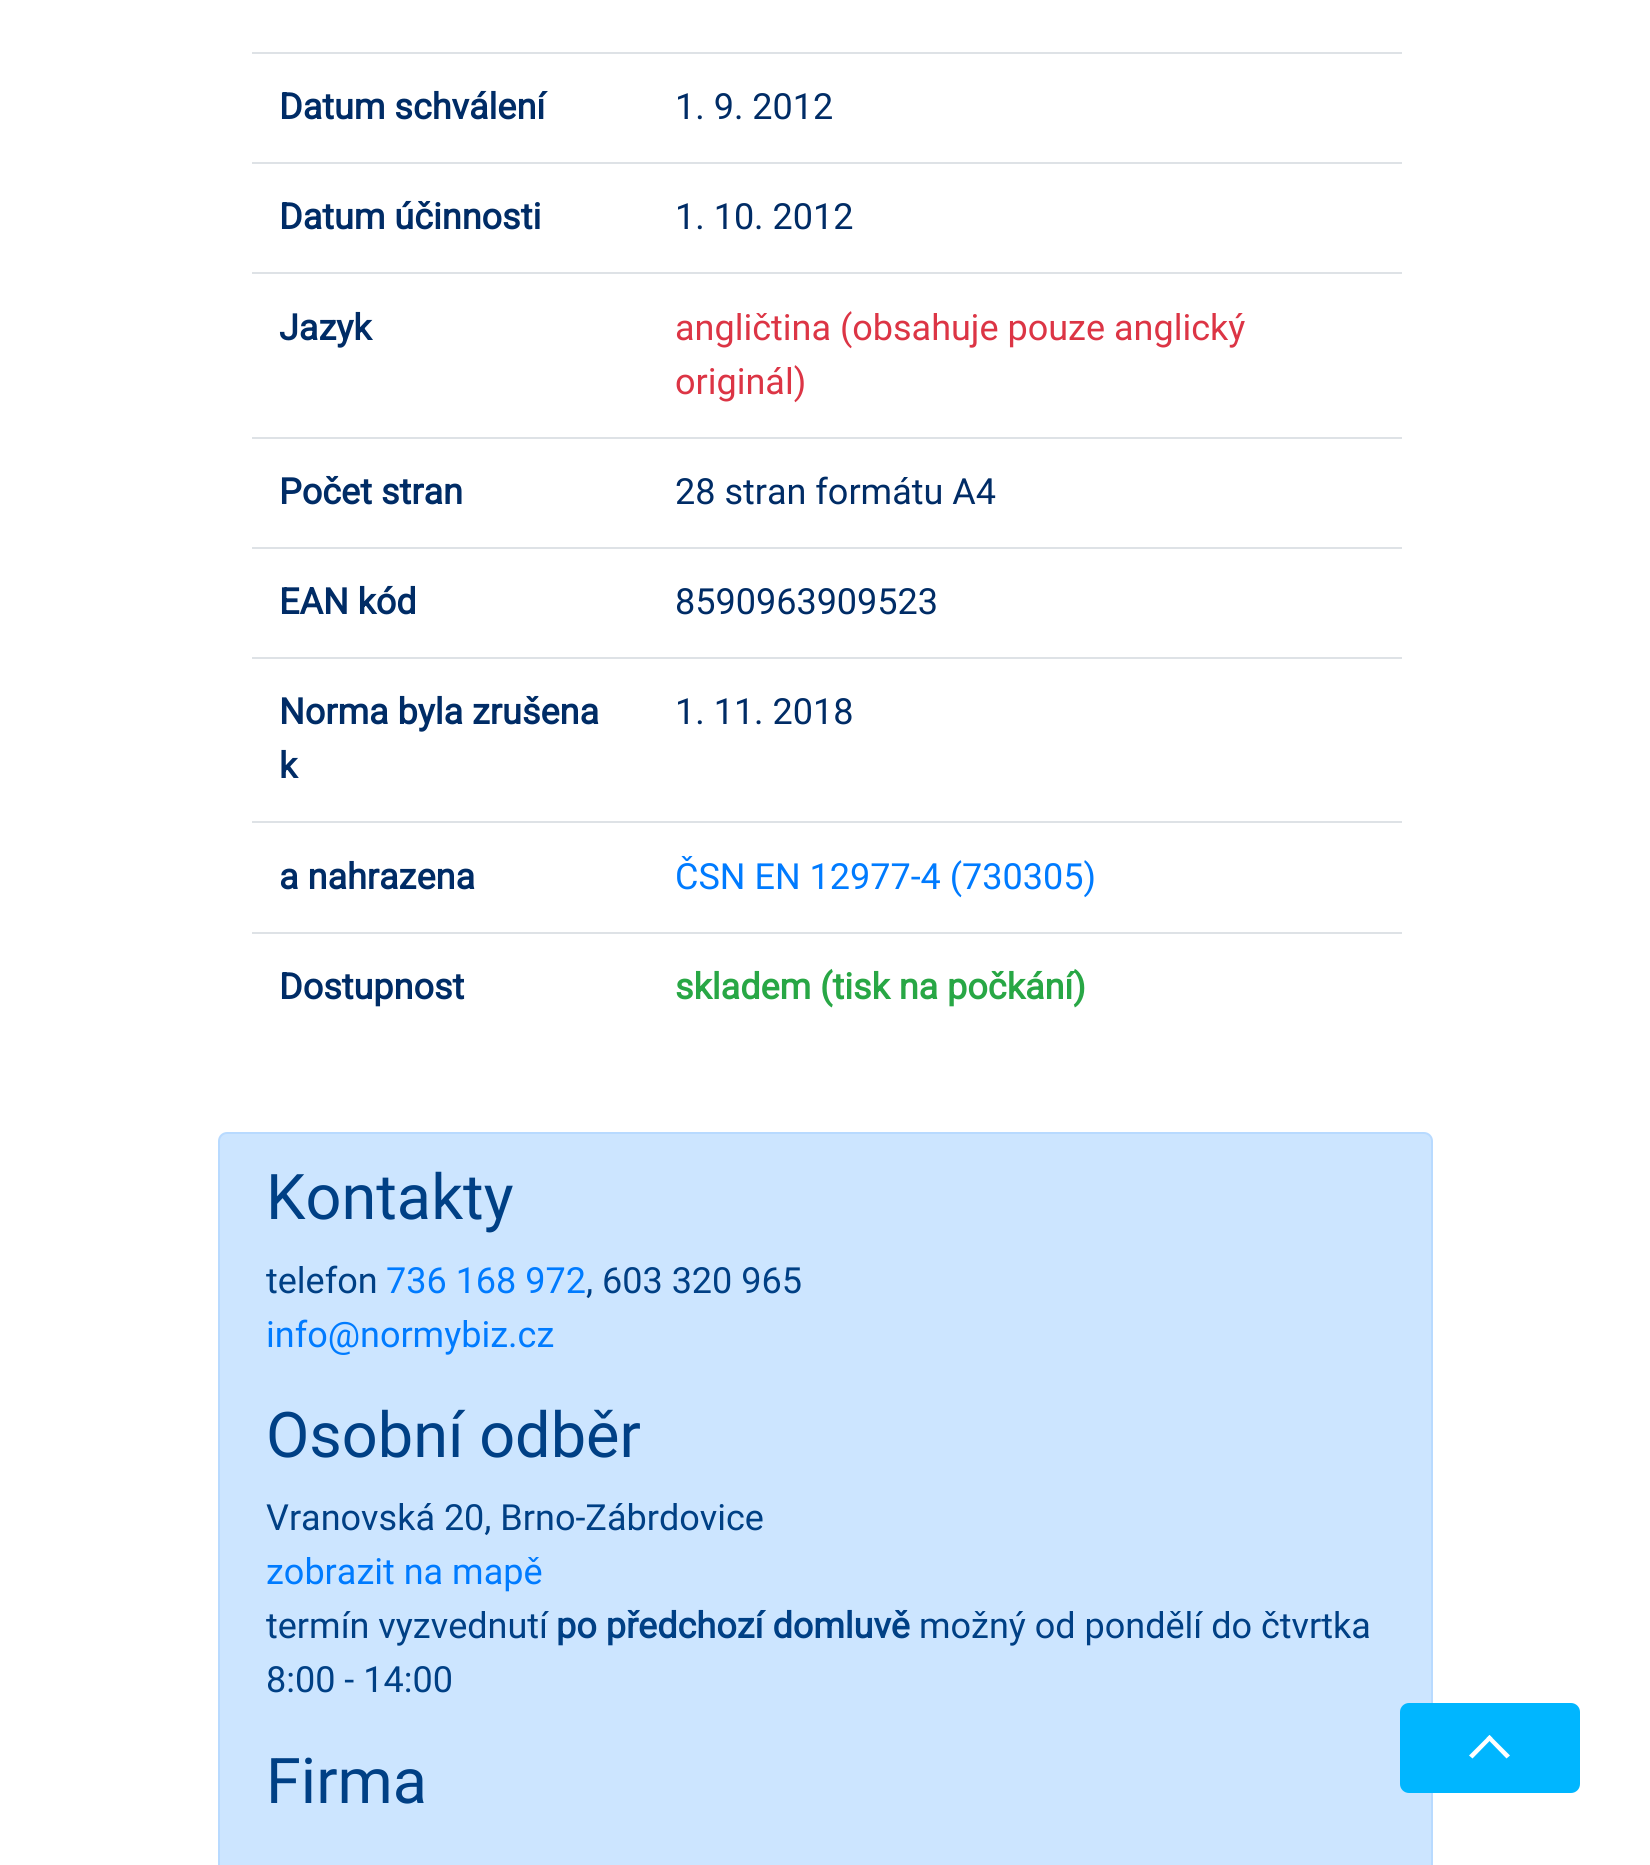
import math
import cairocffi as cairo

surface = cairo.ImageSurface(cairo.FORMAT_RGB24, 1650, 1865)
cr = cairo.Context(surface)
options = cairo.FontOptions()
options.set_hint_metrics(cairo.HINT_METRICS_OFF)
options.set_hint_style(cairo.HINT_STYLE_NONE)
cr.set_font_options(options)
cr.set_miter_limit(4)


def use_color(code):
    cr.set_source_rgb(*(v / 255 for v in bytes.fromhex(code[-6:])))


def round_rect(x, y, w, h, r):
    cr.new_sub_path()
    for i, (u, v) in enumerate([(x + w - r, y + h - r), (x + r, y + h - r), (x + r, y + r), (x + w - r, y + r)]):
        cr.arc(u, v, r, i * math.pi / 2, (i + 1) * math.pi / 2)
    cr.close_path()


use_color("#ffffff")
cr.paint()
cr.select_font_face("Roboto", cairo.FONT_SLANT_NORMAL, cairo.FONT_WEIGHT_BOLD)
cr.set_font_size(36)
use_color("#002c66")
cr.move_to(279, 119)
cr.show_text("Datum schválení")
use_color("#dee2e6")
cr.rectangle(252, 52, 1150, 2)
cr.fill()
cr.select_font_face("Roboto")
use_color("#002c66")
cr.move_to(675, 119)
cr.show_text("1. 9. 2012")
cr.select_font_face("Roboto", cairo.FONT_SLANT_NORMAL, cairo.FONT_WEIGHT_BOLD)
cr.move_to(279, 229)
cr.show_text("Datum účinnosti")
use_color("#dee2e6")
cr.rectangle(252, 162, 1150, 2)
cr.fill()
cr.select_font_face("Roboto")
use_color("#002c66")
cr.move_to(675, 229)
cr.show_text("1. 10. 2012")
cr.select_font_face("Roboto", cairo.FONT_SLANT_NORMAL, cairo.FONT_WEIGHT_BOLD)
cr.move_to(279, 340)
cr.show_text("Jazyk")
use_color("#dee2e6")
cr.rectangle(252, 272, 1150, 2)
cr.fill()
cr.select_font_face("Roboto")
use_color("#dc3545")
cr.move_to(675, 340)
cr.show_text("angličtina (obsahuje pouze anglický")
cr.move_to(675, 394)
cr.show_text("originál)")
cr.select_font_face("Roboto", cairo.FONT_SLANT_NORMAL, cairo.FONT_WEIGHT_BOLD)
use_color("#002c66")
cr.move_to(279, 504)
cr.show_text("Počet stran")
use_color("#dee2e6")
cr.rectangle(252, 437, 1150, 2)
cr.fill()
cr.select_font_face("Roboto")
use_color("#002c66")
cr.move_to(675, 504)
cr.show_text("28 stran formátu A4")
cr.select_font_face("Roboto", cairo.FONT_SLANT_NORMAL, cairo.FONT_WEIGHT_BOLD)
cr.move_to(279, 614)
cr.show_text("EAN kód")
use_color("#dee2e6")
cr.rectangle(252, 547, 1150, 2)
cr.fill()
cr.select_font_face("Roboto")
use_color("#002c66")
cr.move_to(675, 614)
cr.show_text("8590963909523")
cr.select_font_face("Roboto", cairo.FONT_SLANT_NORMAL, cairo.FONT_WEIGHT_BOLD)
cr.move_to(279, 724)
cr.show_text("Norma byla zrušena")
cr.move_to(279, 778)
cr.show_text("k")
use_color("#dee2e6")
cr.rectangle(252, 657, 1150, 2)
cr.fill()
cr.select_font_face("Roboto")
use_color("#002c66")
cr.move_to(675, 724)
cr.show_text("1. 11. 2018")
cr.select_font_face("Roboto", cairo.FONT_SLANT_NORMAL, cairo.FONT_WEIGHT_BOLD)
cr.move_to(279, 889)
cr.show_text("a nahrazena")
use_color("#dee2e6")
cr.rectangle(252, 821, 1150, 2)
cr.fill()
cr.select_font_face("Roboto")
use_color("#007bff")
cr.move_to(675, 889)
cr.show_text("ČSN EN 12977-4 (730305)")
cr.select_font_face("Roboto", cairo.FONT_SLANT_NORMAL, cairo.FONT_WEIGHT_BOLD)
use_color("#002c66")
cr.move_to(279, 999)
cr.show_text("Dostupnost")
use_color("#dee2e6")
cr.rectangle(252, 932, 1150, 2)
cr.fill()
use_color("#28a745")
cr.move_to(675, 999)
cr.show_text("skladem (tisk na počkání)")
use_color("#cce5ff")
round_rect(219, 1133, 1213, 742, 8)
cr.fill_preserve()
use_color("#b8daff")
cr.stroke()
cr.select_font_face("Roboto")
cr.set_font_size(63)
use_color("#004085")
cr.move_to(266, 1219)
cr.show_text("Kontakty")
cr.set_font_size(36)
cr.move_to(266, 1293)
cr.show_text("telefon")
use_color("#007bff")
cr.move_to(386, 1293)
cr.show_text("736 168 972")
use_color("#004085")
cr.move_to(586, 1293)
cr.show_text(", 603 320 965")
use_color("#007bff")
cr.move_to(266, 1347)
cr.show_text("info@normybiz.cz")
cr.set_font_size(63)
use_color("#004085")
cr.move_to(266, 1457)
cr.show_text("Osobní odběr")
cr.set_font_size(36)
cr.move_to(266, 1530)
cr.show_text("Vranovská 20, Brno-Zábrdovice")
use_color("#007bff")
cr.move_to(266, 1584)
cr.show_text("zobrazit na mapě")
use_color("#004085")
cr.move_to(266, 1638)
cr.show_text("termín vyzvednutí")
cr.select_font_face("Roboto", cairo.FONT_SLANT_NORMAL, cairo.FONT_WEIGHT_BOLD)
cr.move_to(556, 1638)
cr.show_text("po předchozí domluvě")
cr.select_font_face("Roboto")
cr.move_to(919, 1638)
cr.show_text("možný od pondělí do čtvrtka")
cr.move_to(266, 1692)
cr.show_text("8:00 - 14:00")
cr.set_font_size(63)
cr.move_to(266, 1803)
cr.show_text("Firma")
use_color("#00b6ff")
round_rect(1400, 1703, 180, 90, 9)
cr.fill()
use_color("#ffffff")
cr.new_path()
cr.move_to(1489.5, 1735)
cr.line_to(1510, 1755.5)
cr.line_to(1506.5, 1758.5)
cr.line_to(1486.5, 1738)
cr.close_path()
cr.fill()
cr.new_path()
cr.move_to(1489.5, 1735)
cr.line_to(1492.5, 1738)
cr.line_to(1472.5, 1758.5)
cr.line_to(1469, 1755.5)
cr.close_path()
cr.fill()
surface.write_to_png("result.png")
